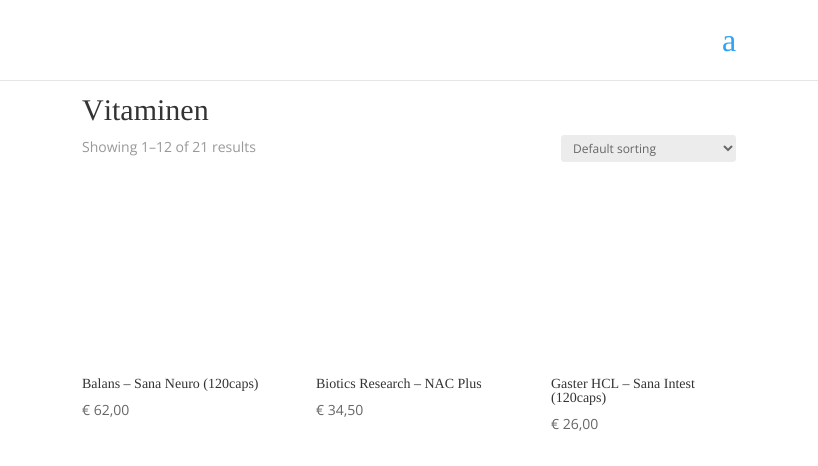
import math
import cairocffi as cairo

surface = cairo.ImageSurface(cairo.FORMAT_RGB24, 818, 466)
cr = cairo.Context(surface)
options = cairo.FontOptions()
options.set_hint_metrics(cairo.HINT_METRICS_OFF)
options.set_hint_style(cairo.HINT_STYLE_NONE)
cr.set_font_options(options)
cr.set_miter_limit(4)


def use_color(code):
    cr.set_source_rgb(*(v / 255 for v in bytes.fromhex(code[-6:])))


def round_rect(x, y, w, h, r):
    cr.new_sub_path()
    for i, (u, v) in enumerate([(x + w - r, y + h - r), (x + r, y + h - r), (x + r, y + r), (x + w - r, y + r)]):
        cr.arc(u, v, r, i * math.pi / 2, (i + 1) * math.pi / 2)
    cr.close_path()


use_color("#ffffff")
cr.paint()
use_color("#e6e6e6")
cr.rectangle(0, 80, 818, 1)
cr.fill()
cr.select_font_face("Liberation Serif")
cr.set_font_size(32)
use_color("#2ea3f2")
cr.move_to(722, 51)
cr.show_text("a")
cr.set_font_size(30)
use_color("#333333")
cr.move_to(82, 120)
cr.show_text("Vitaminen")
cr.select_font_face("Open Sans")
cr.set_font_size(14)
use_color("#999999")
cr.move_to(82, 152)
cr.show_text("Showing 1–12 of 21 results")
use_color("#ececec")
round_rect(561, 135, 175, 27, 3)
cr.fill()
cr.new_path()
cr.move_to(724, 146)
cr.line_to(728, 150)
cr.line_to(732, 146)
use_color("#666666")
cr.stroke()
cr.set_font_size(12)
cr.move_to(573, 153)
cr.show_text("Default sorting")
cr.select_font_face("Liberation Serif")
cr.set_font_size(14)
use_color("#333333")
cr.move_to(82, 388)
cr.show_text("Balans – Sana Neuro (120caps)")
cr.select_font_face("Open Sans")
use_color("#666666")
cr.move_to(82, 415)
cr.show_text("€ 62,00")
cr.select_font_face("Liberation Serif")
use_color("#333333")
cr.move_to(316, 388)
cr.show_text("Biotics Research – NAC Plus")
cr.select_font_face("Open Sans")
use_color("#666666")
cr.move_to(316, 415)
cr.show_text("€ 34,50")
cr.select_font_face("Liberation Serif")
use_color("#333333")
cr.move_to(551, 388)
cr.show_text("Gaster HCL – Sana Intest")
cr.move_to(551, 402)
cr.show_text("(120caps)")
cr.select_font_face("Open Sans")
use_color("#666666")
cr.move_to(551, 429)
cr.show_text("€ 26,00")
surface.write_to_png("result.png")
